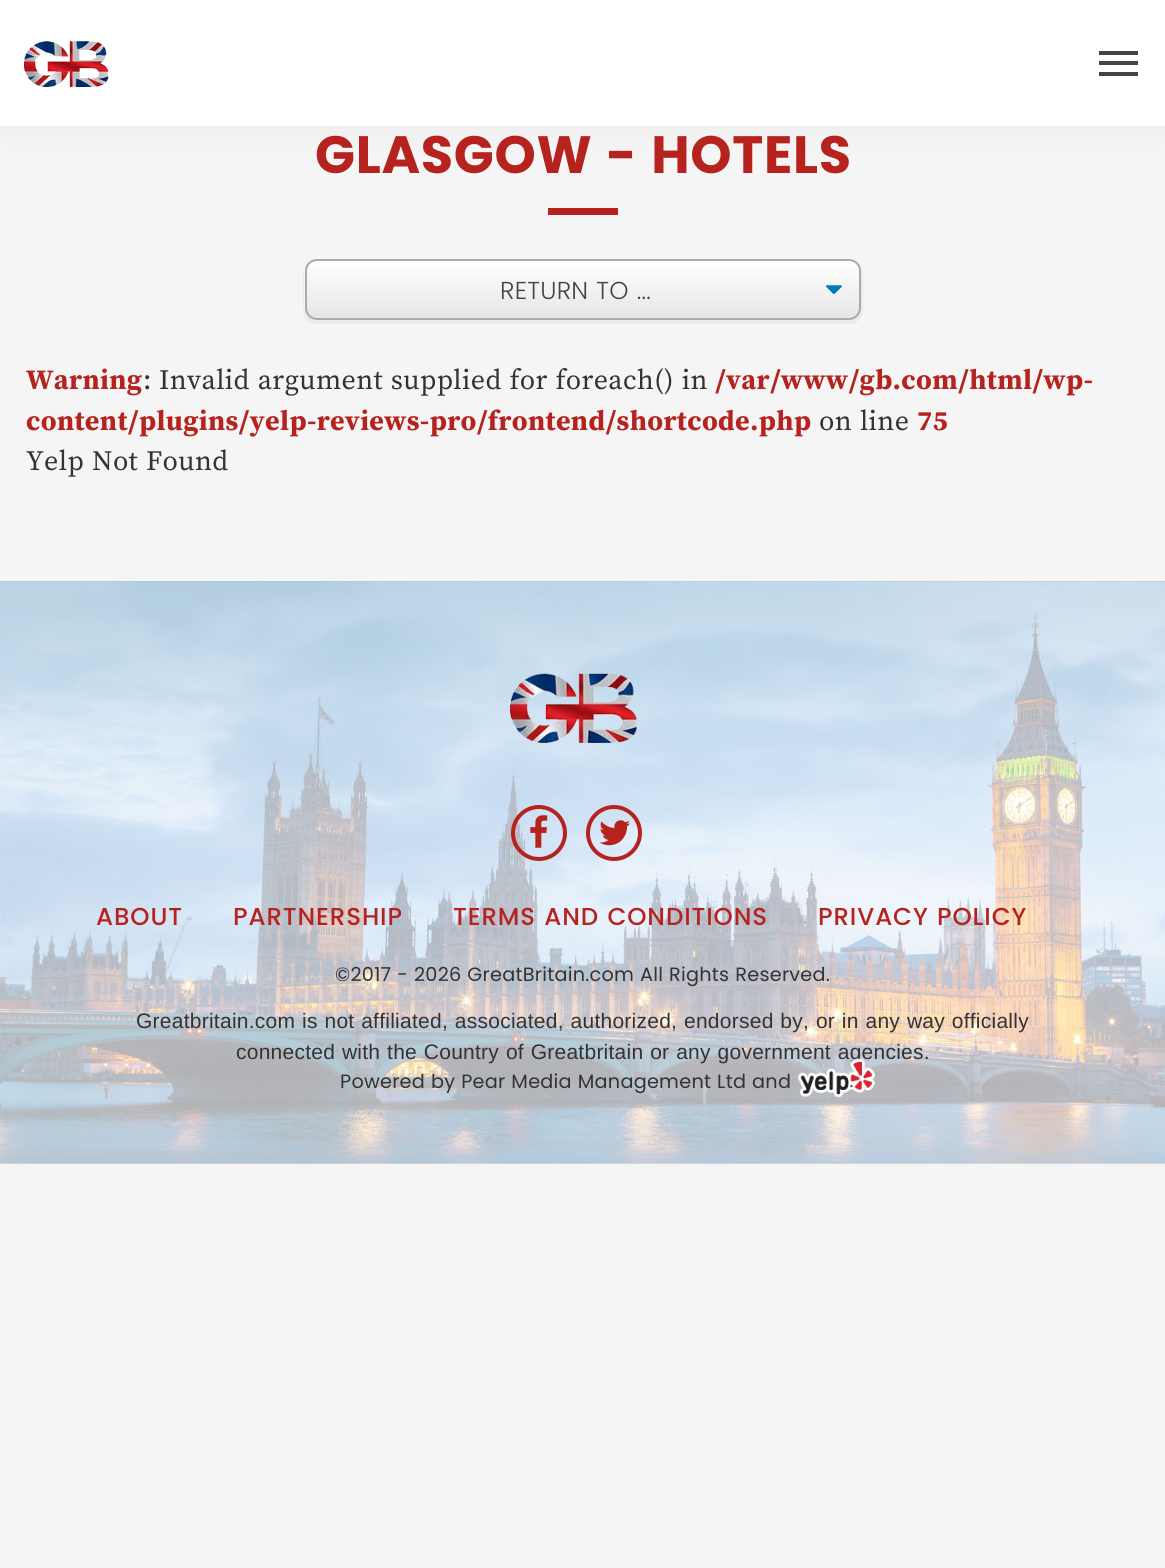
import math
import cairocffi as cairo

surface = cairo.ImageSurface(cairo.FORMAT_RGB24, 1165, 1568)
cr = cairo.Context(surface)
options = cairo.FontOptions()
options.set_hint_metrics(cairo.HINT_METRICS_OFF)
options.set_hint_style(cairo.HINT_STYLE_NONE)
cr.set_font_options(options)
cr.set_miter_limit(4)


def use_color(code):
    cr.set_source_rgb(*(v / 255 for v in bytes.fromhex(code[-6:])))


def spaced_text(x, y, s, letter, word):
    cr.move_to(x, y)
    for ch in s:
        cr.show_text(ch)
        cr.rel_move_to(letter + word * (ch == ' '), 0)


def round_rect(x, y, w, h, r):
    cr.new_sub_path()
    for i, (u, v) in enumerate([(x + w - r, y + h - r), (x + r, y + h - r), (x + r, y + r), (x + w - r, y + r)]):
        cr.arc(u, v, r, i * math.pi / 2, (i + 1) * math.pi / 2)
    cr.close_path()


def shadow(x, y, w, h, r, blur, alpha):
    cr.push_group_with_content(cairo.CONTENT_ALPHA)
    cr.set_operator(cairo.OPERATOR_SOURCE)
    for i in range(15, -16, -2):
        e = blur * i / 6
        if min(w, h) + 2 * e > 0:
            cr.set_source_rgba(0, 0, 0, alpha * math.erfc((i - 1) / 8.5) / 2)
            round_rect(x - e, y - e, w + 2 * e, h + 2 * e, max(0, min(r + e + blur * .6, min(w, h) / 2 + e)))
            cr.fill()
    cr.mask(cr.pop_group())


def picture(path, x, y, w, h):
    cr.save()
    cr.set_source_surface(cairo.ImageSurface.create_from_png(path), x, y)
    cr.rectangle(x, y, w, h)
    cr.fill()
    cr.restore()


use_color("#f5f5f5")
cr.paint()
use_color("#000000")
shadow(0, 0, 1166, 126, 0, 17.5, 0.05)
use_color("#ffffff")
cr.rectangle(0, 0, 1165, 126)
cr.fill()
picture("img1.png", 23, 41, 86, 47)
use_color("#444444")
cr.rectangle(1099, 51, 39, 4)
cr.fill()
cr.rectangle(1099, 61, 39, 4)
cr.fill()
cr.rectangle(1099, 72, 39, 4)
cr.fill()
cr.select_font_face("Poppins", cairo.FONT_SLANT_NORMAL, cairo.FONT_WEIGHT_BOLD)
cr.set_font_size(52.5)
use_color("#b6231f")
spaced_text(315, 173, "GLASGOW - HOTELS", 0.7, 2)
cr.rectangle(548, 208, 70, 7)
cr.fill()
use_color("#ebebeb")
cr.new_path()
cr.move_to(863, 273)
cr.curve_to(863, 265, 856, 259, 849, 259)
cr.curve_to(856, 259, 861, 264, 861, 271)
cr.line_to(861, 308)
cr.curve_to(861, 315, 856, 320, 849, 320)
cr.line_to(317, 320)
cr.curve_to(310, 320, 304, 315, 304, 308)
cr.line_to(304, 271)
cr.curve_to(304, 266, 308, 261, 313, 260)
cr.curve_to(307, 261, 303, 267, 303, 273)
cr.line_to(303, 310)
cr.curve_to(303, 318, 309, 324, 317, 324)
cr.line_to(849, 324)
cr.curve_to(857, 324, 863, 318, 863, 310)
cr.close_path()
cr.fill()
cr.save()
round_rect(305, 259, 556, 61, 12)
cr.clip()
gradient = cairo.LinearGradient(583, 261, 583, 319)
gradient.add_color_stop_rgba(0, 1, 1, 1, 1)
gradient.add_color_stop_rgba(1, 0.898, 0.898, 0.898, 1)
cr.set_source(gradient)
cr.rectangle(305, 261, 556, 58)
cr.fill()
cr.restore()
picture("img2.png", 826, 285, 16, 10)
round_rect(306, 260, 554, 59, 11)
use_color("#aaaaaa")
cr.stroke()
cr.select_font_face("Poppins Light")
cr.set_font_size(24.5)
use_color("#444444")
spaced_text(500, 299, "RETURN TO ...", 0.25, 1)
cr.select_font_face("Source Serif Pro", cairo.FONT_SLANT_NORMAL, cairo.FONT_WEIGHT_BOLD)
cr.set_font_size(28)
use_color("#b6231f")
spaced_text(26, 389, "Warning", 0.35, 0)
cr.select_font_face("Source Serif Pro")
use_color("#333333")
spaced_text(143, 389, ":", 0.35, 0)
spaced_text(159, 389, "Invalid argument supplied for foreach() in", 0.35, 1)
cr.select_font_face("Source Serif Pro", cairo.FONT_SLANT_NORMAL, cairo.FONT_WEIGHT_BOLD)
use_color("#b6231f")
spaced_text(715, 389, "/var/www/gb.com/html/wp-", 0.35, 0)
spaced_text(26, 430, "content/plugins/yelp-reviews-pro/frontend/shortcode.php", 0.35, 0)
cr.select_font_face("Source Serif Pro")
use_color("#333333")
spaced_text(819, 430, "on line", 0.35, 1)
cr.select_font_face("Source Serif Pro", cairo.FONT_SLANT_NORMAL, cairo.FONT_WEIGHT_BOLD)
use_color("#b6231f")
spaced_text(917, 430, "75", 0.35, 0)
cr.select_font_face("Source Serif Pro")
use_color("#333333")
spaced_text(26, 470, "Yelp Not Found", 0.35, 1)
picture("img3.png", 0, 581, 1165, 583)
picture("img4.png", 509, 673, 128, 71)
cr.arc(539, 833, 26, 0, 2 * math.pi)
use_color("#b6231f")
cr.set_line_width(4)
cr.stroke()
picture("img5.png", 530, 815, 18, 33)
cr.arc(614, 833, 26, 0, 2 * math.pi)
cr.stroke()
picture("img6.png", 599, 820, 31, 26)
cr.select_font_face("Poppins Medium")
cr.set_font_size(24.5)
spaced_text(96, 925, "ABOUT", 0.9, 0)
spaced_text(233, 925, "PARTNERSHIP", 0.9, 0)
spaced_text(453, 925, "TERMS AND CONDITIONS", 0.9, 1)
spaced_text(818, 925, "PRIVACY POLICY", 0.9, 1)
cr.select_font_face("Poppins")
cr.set_font_size(19.25)
use_color("#333333")
spaced_text(335, 981, "©2017 - 2026 GreatBritain.com All Rights Reserved.", 0.25, 0.5)
cr.select_font_face("Liberation Sans")
cr.set_font_size(21)
spaced_text(136, 1028, "Greatbritain.com is not affiliated, associated, authorized, endorsed by, or in any way officially", 0.25, 0.7)
spaced_text(236, 1059, "connected with the Country of Greatbritain or any government agencies.", 0.25, 0.7)
cr.select_font_face("Poppins")
cr.set_font_size(19.25)
spaced_text(340, 1088, "Powered by Pear Media Management Ltd and", 0.25, 0.5)
picture("img7.png", 798, 1058, 77, 40)
surface.write_to_png("result.png")
